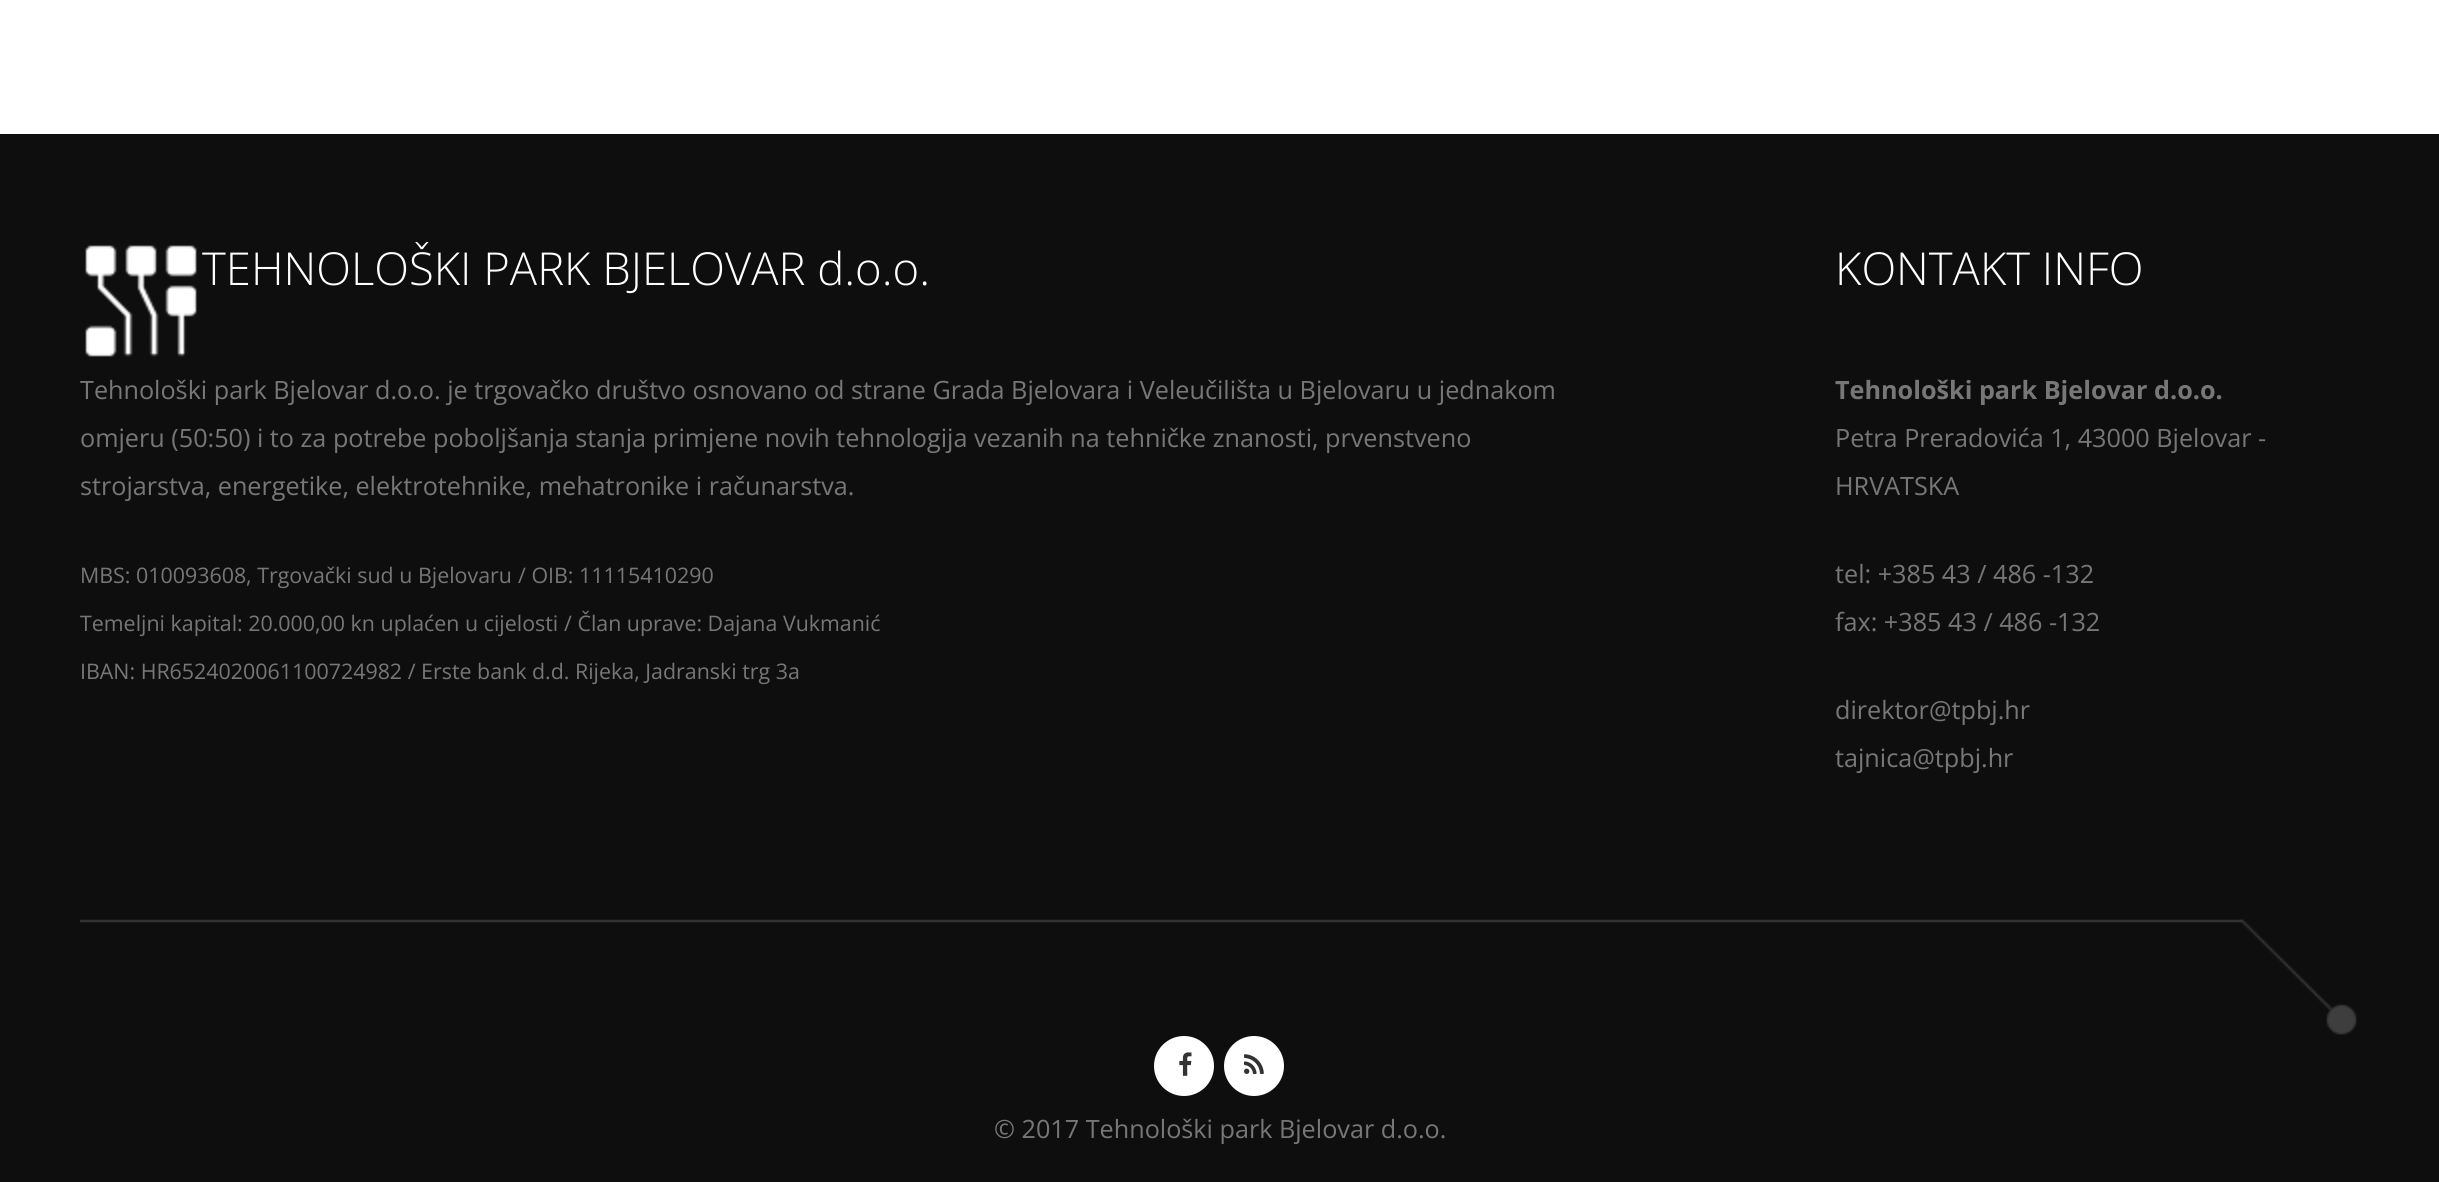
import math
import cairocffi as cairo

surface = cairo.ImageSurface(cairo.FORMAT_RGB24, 2439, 1182)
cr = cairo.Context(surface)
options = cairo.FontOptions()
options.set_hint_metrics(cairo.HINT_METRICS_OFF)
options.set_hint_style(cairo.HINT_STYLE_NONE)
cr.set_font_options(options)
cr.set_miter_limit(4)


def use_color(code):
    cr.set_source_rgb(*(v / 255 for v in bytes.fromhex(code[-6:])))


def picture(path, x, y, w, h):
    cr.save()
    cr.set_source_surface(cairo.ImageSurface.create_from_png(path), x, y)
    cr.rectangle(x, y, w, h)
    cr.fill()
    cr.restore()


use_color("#ffffff")
cr.paint()
use_color("#0e0e0e")
cr.rectangle(0, 134, 2439, 1048)
cr.fill()
picture("img1.png", 85, 245, 112, 112)
cr.select_font_face("Open Sans Light")
cr.set_font_size(45.4)
use_color("#ffffff")
cr.move_to(202, 285)
cr.show_text("TEHNOLOŠKI PARK BJELOVAR d.o.o.")
cr.select_font_face("Open Sans")
cr.set_font_size(25.2)
use_color("#777777")
cr.move_to(80, 399)
cr.show_text("Tehnološki park Bjelovar d.o.o. je trgovačko društvo osnovano od strane Grada Bjelovara i Veleučilišta u Bjelovaru u jednakom")
cr.move_to(80, 447)
cr.show_text("omjeru (50:50) i to za potrebe poboljšanja stanja primjene novih tehnologija vezanih na tehničke znanosti, prvenstveno")
cr.move_to(80, 495)
cr.show_text("strojarstva, energetike, elektrotehnike, mehatronike i računarstva.")
cr.set_font_size(21.4)
cr.move_to(80, 583)
cr.show_text("MBS: 010093608, Trgovački sud u Bjelovaru")
cr.move_to(518, 583)
cr.show_text("/ OIB: 11115410290")
cr.move_to(80, 631)
cr.show_text("Temeljni kapital: 20.000,00 kn uplaćen u cijelosti")
cr.move_to(564, 631)
cr.show_text("/ Član uprave: Dajana Vukmanić")
cr.move_to(80, 679)
cr.show_text("IBAN: HR6524020061100724982 / Erste bank d.d. Rijeka, Jadranski trg 3a")
cr.select_font_face("Open Sans Light")
cr.set_font_size(45.4)
use_color("#ffffff")
cr.move_to(1835, 285)
cr.show_text("KONTAKT INFO")
cr.select_font_face("Open Sans", cairo.FONT_SLANT_NORMAL, cairo.FONT_WEIGHT_BOLD)
cr.set_font_size(25.2)
use_color("#777777")
cr.move_to(1835, 399)
cr.show_text("Tehnološki park Bjelovar d.o.o.")
cr.select_font_face("Open Sans")
cr.move_to(1835, 447)
cr.show_text("Petra Preradovića 1, 43000 Bjelovar -")
cr.move_to(1835, 495)
cr.show_text("HRVATSKA")
cr.move_to(1835, 583)
cr.show_text("tel: +385 43 / 486 -132")
cr.move_to(1835, 631)
cr.show_text("fax: +385 43 / 486 -132")
cr.move_to(1835, 719)
cr.show_text("direktor@tpbj.hr")
cr.move_to(1835, 767)
cr.show_text("tajnica@tpbj.hr")
picture("img2.png", 80, 919, 2277, 116)
use_color("#ffffff")
cr.arc(1184, 1066, 30, 0, 2 * math.pi)
cr.fill()
picture("img3.png", 1179, 1052, 13, 24)
cr.arc(1254, 1066, 30, 0, 2 * math.pi)
cr.fill()
picture("img4.png", 1244, 1054, 20, 20)
use_color("#777777")
cr.move_to(994, 1138)
cr.show_text("© 2017 Tehnološki park Bjelovar d.o.o.")
surface.write_to_png("result.png")
